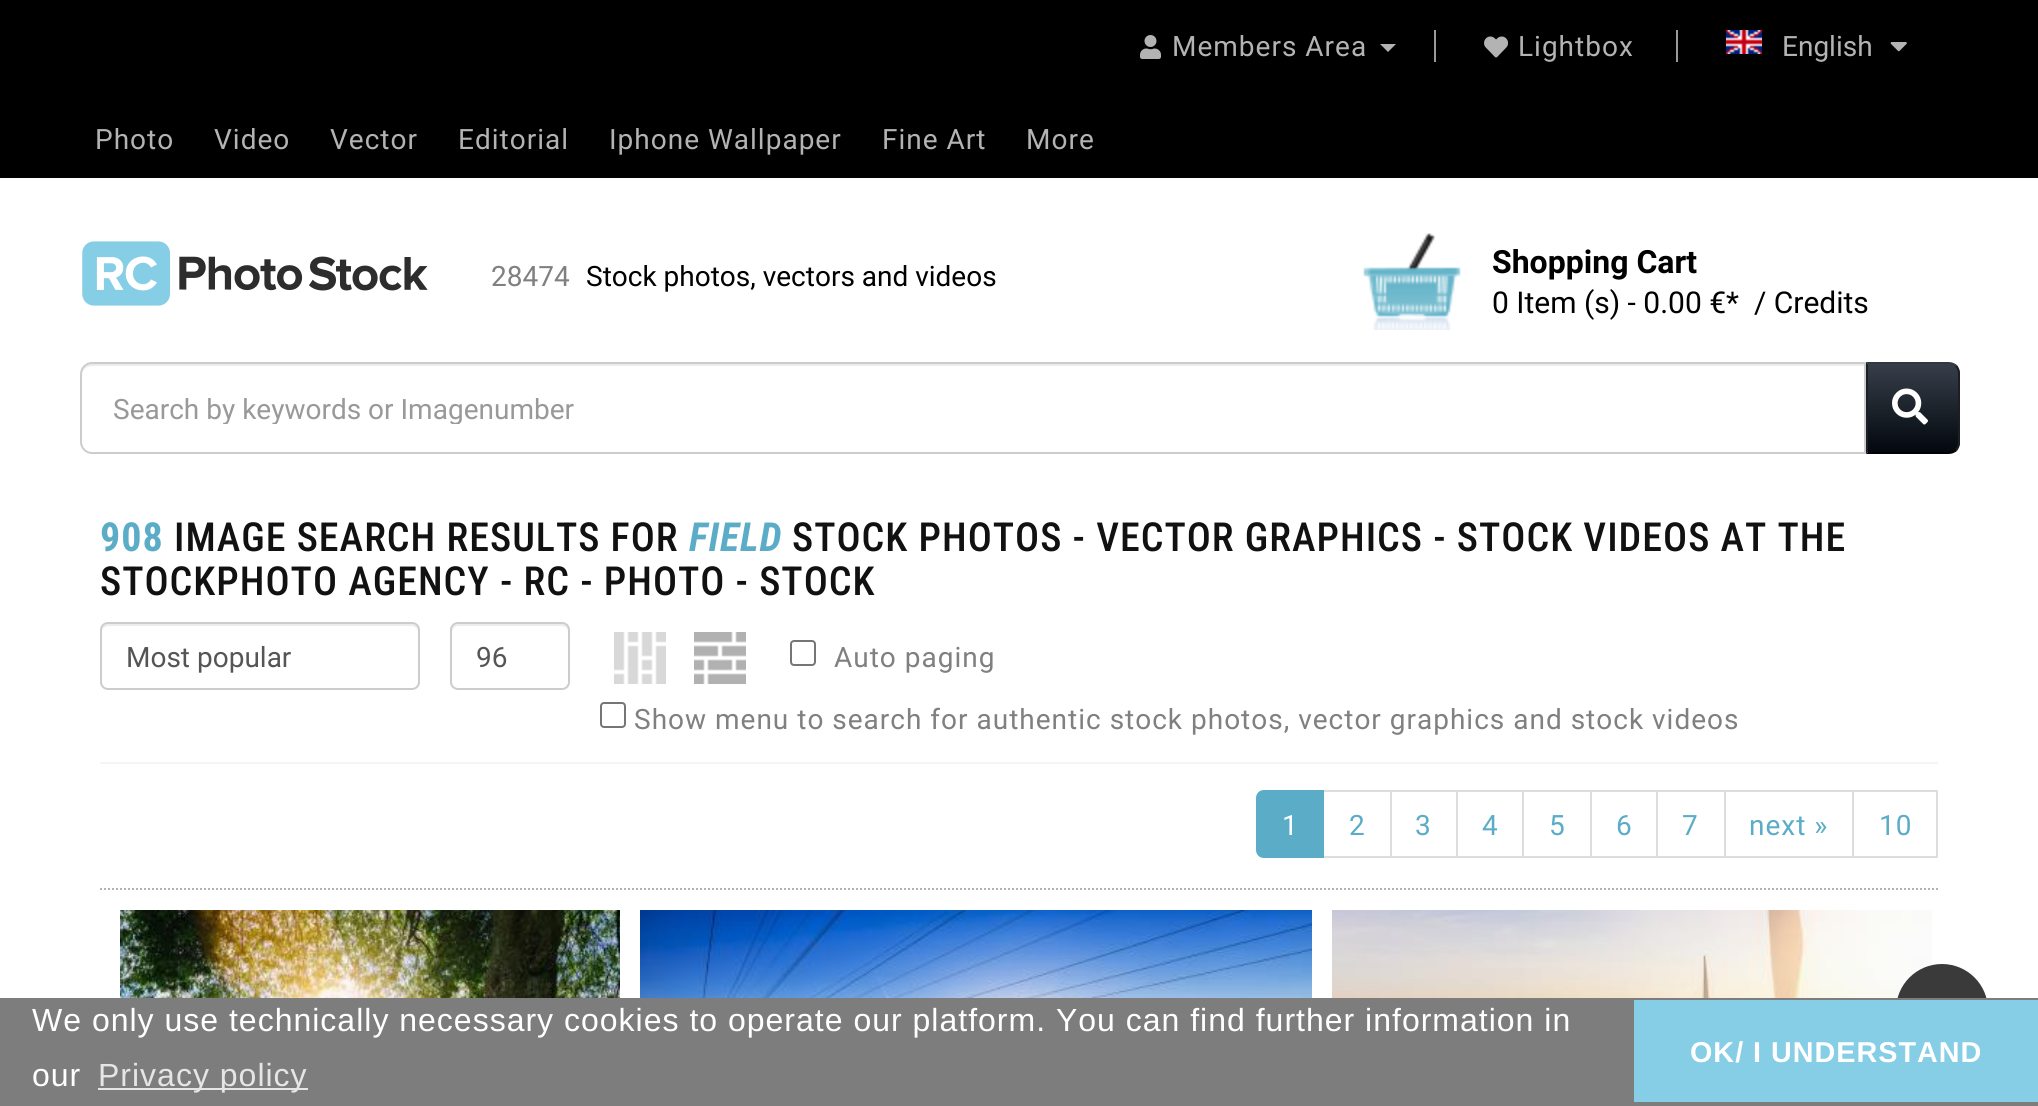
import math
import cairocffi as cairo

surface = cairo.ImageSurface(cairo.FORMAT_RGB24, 2038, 1106)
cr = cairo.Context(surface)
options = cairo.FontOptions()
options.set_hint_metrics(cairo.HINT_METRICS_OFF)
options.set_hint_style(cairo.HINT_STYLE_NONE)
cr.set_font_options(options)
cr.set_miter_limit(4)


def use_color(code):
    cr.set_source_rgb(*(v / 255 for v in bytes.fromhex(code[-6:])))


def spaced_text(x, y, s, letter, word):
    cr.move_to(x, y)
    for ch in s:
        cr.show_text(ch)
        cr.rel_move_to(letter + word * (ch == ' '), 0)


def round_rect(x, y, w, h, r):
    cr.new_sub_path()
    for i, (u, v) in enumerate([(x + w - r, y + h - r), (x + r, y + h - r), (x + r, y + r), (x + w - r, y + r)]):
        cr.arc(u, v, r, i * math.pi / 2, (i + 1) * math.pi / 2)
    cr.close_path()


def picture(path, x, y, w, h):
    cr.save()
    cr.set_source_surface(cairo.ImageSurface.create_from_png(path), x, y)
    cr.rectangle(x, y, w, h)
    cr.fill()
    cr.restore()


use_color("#ffffff")
cr.paint()
use_color("#000000")
cr.rectangle(0, 0, 2038, 178)
cr.fill()
use_color("#999999")
cr.rectangle(1434, 30, 2, 32)
cr.fill()
picture("img1.png", 1140, 35, 21, 24)
cr.select_font_face("Roboto")
cr.set_font_size(28)
use_color("#b3b3b3")
spaced_text(1172, 56, "Members Area", 1, 0)
cr.new_path()
cr.move_to(1380, 44)
cr.line_to(1396, 44)
cr.line_to(1388, 52)
cr.close_path()
cr.fill()
picture("img2.png", 1484, 36, 24, 22)
spaced_text(1518, 56, "Lightbox", 1, 0)
use_color("#999999")
cr.rectangle(1676, 30, 2, 32)
cr.fill()
picture("img3.png", 1726, 30, 36, 24)
use_color("#b3b3b3")
cr.move_to(1782, 56)
cr.show_text("English")
picture("img4.png", 1890, 42, 17, 10)
spaced_text(95, 149, "Photo", 1, 0)
spaced_text(214, 149, "Video", 1, 0)
spaced_text(330, 149, "Vector", 1, 0)
spaced_text(458, 149, "Editorial", 1, 0)
spaced_text(609, 149, "Iphone Wallpaper", 1, 0)
spaced_text(882, 149, "Fine Art", 1, 0)
spaced_text(1026, 149, "More", 1, 0)
picture("img5.png", 82, 241, 346, 65)
use_color("#808080")
cr.move_to(491, 286)
cr.show_text("28474")
use_color("#000000")
cr.move_to(586, 286)
cr.show_text("Stock photos, vectors and videos")
picture("img6.png", 1363, 233, 98, 97)
cr.select_font_face("Roboto", cairo.FONT_SLANT_NORMAL, cairo.FONT_WEIGHT_BOLD)
cr.set_font_size(32)
cr.move_to(1492, 273)
cr.show_text("Shopping Cart")
cr.select_font_face("Roboto")
cr.set_font_size(30)
cr.move_to(1492, 313)
cr.show_text("0 Item (s) - 0.00 €*  / Credits")
use_color("#ececec")
cr.new_path()
cr.move_to(92, 366)
cr.line_to(1864, 366)
cr.line_to(1864, 364)
cr.line_to(92, 364)
cr.curve_to(86, 364, 82, 368, 82, 374)
cr.line_to(82, 376)
cr.curve_to(82, 370, 86, 366, 92, 366)
cr.close_path()
cr.fill()
cr.new_path()
cr.move_to(92, 363)
cr.line_to(1865, 363)
cr.line_to(1865, 453)
cr.line_to(92, 453)
cr.curve_to(86, 453, 81, 448, 81, 442)
cr.line_to(81, 374)
cr.curve_to(81, 368, 86, 363, 92, 363)
cr.close_path()
use_color("#cccccc")
cr.stroke()
cr.save()
cr.rectangle(114, 392, 1718, 32)
cr.clip()
cr.set_font_size(28)
use_color("#999999")
cr.move_to(113, 419)
cr.show_text("Search by keywords or Imagenumber")
cr.restore()
cr.save()
cr.new_path()
cr.move_to(1866, 362)
cr.line_to(1948, 362)
cr.curve_to(1954.5, 362, 1960, 367.5, 1960, 374)
cr.line_to(1960, 442)
cr.curve_to(1960, 448.5, 1954.5, 454, 1948, 454)
cr.line_to(1866, 454)
cr.close_path()
cr.clip()
gradient = cairo.LinearGradient(1913, 364, 1913, 452)
gradient.add_color_stop_rgba(0, 0.212, 0.243, 0.286, 1)
gradient.add_color_stop_rgba(1, 0.012, 0.031, 0.055, 1)
cr.set_source(gradient)
cr.rectangle(1868, 364, 92, 88)
cr.fill()
cr.restore()
use_color("#333740")
cr.new_path()
cr.move_to(1866, 362)
cr.line_to(1868, 364)
cr.line_to(1948, 364)
cr.curve_to(1951, 364, 1954, 365, 1955, 367)
cr.line_to(1957, 365)
cr.curve_to(1954, 363, 1952, 362, 1948, 362)
cr.close_path()
cr.fill()
use_color("#1c1e24")
cr.new_path()
cr.move_to(1960, 442)
cr.line_to(1960, 374)
cr.curve_to(1960, 370, 1959, 368, 1957, 365)
cr.line_to(1955, 367)
cr.curve_to(1957, 368, 1958, 371, 1958, 374)
cr.line_to(1958, 442)
cr.curve_to(1958, 445, 1957, 448, 1955, 449)
cr.line_to(1957, 451)
cr.curve_to(1959, 448, 1960, 446, 1960, 442)
cr.close_path()
cr.fill()
use_color("#010102")
cr.new_path()
cr.move_to(1948, 454)
cr.curve_to(1952, 454, 1954, 453, 1957, 451)
cr.line_to(1955, 449)
cr.curve_to(1954, 451, 1951, 452, 1948, 452)
cr.line_to(1868, 452)
cr.line_to(1866, 454)
cr.close_path()
cr.fill()
use_color("#1c1e24")
cr.new_path()
cr.move_to(1866, 362)
cr.line_to(1866, 454)
cr.line_to(1868, 452)
cr.line_to(1868, 364)
cr.close_path()
cr.fill()
picture("img7.png", 1892, 388, 36, 37)
use_color("#f5f5f5")
cr.rectangle(100, 762, 1838, 2)
cr.fill()
cr.select_font_face("Roboto Condensed", cairo.FONT_SLANT_NORMAL, cairo.FONT_WEIGHT_BOLD)
cr.set_font_size(40)
use_color("#5bacc7")
spaced_text(100, 551, "908", 1, 0)
cr.select_font_face("Roboto Condensed Medium")
use_color("#111111")
spaced_text(174, 551, "IMAGE SEARCH RESULTS FOR", 1, 0)
cr.select_font_face("Roboto Condensed", cairo.FONT_SLANT_ITALIC, cairo.FONT_WEIGHT_BOLD)
use_color("#5bacc7")
spaced_text(689, 551, "FIELD", 1, 0)
cr.select_font_face("Roboto Condensed Medium")
use_color("#111111")
spaced_text(792, 551, "STOCK PHOTOS - VECTOR GRAPHICS - STOCK VIDEOS AT THE", 1, 0)
spaced_text(100, 595, "STOCKPHOTO AGENCY - RC - PHOTO - STOCK", 1, 0)
use_color("#ececec")
cr.new_path()
cr.move_to(108, 626)
cr.line_to(412, 626)
cr.curve_to(415, 626, 418, 629, 418, 632)
cr.curve_to(418, 628, 417, 624, 412, 624)
cr.line_to(107, 624)
cr.curve_to(103, 625, 102, 629, 102, 632)
cr.curve_to(102, 629, 105, 626, 108, 626)
cr.close_path()
cr.fill()
round_rect(101, 623, 318, 66, 7)
use_color("#cccccc")
cr.stroke()
cr.select_font_face("Roboto")
cr.set_font_size(28)
use_color("#555555")
cr.move_to(126, 667)
cr.show_text("Most popular")
use_color("#ececec")
cr.new_path()
cr.move_to(458, 626)
cr.line_to(562, 626)
cr.curve_to(565, 626, 568, 629, 568, 632)
cr.line_to(568, 630)
cr.curve_to(568, 627, 565, 624, 562, 624)
cr.line_to(458, 624)
cr.curve_to(455, 624, 452, 627, 452, 630)
cr.line_to(452, 632)
cr.curve_to(452, 629, 455, 626, 458, 626)
cr.close_path()
cr.fill()
round_rect(451, 623, 118, 66, 7)
use_color("#cccccc")
cr.stroke()
use_color("#555555")
cr.move_to(476, 667)
cr.show_text("96")
picture("img8.png", 614, 632, 52, 52)
picture("img9.png", 694, 632, 52, 52)
round_rect(791, 641, 24, 24, 3)
use_color("#767676")
cr.stroke()
use_color("#808080")
spaced_text(834, 667, "Auto paging", 1, 0)
round_rect(601, 703, 24, 24, 3)
use_color("#767676")
cr.stroke()
use_color("#808080")
spaced_text(634, 729, "Show menu to search for authentic stock photos, vector graphics and stock videos", 1, 0)
cr.new_path()
cr.move_to(100, 889)
cr.line_to(1938, 889)
use_color("#b3b3b3")
cr.set_dash([2, 2])
cr.stroke()
cr.rectangle(1323, 791, 68, 66)
use_color("#dddddd")
cr.set_dash([])
cr.stroke()
use_color("#5bacc7")
cr.new_path()
cr.move_to(1264, 791)
cr.line_to(1323, 791)
cr.line_to(1323, 857)
cr.line_to(1264, 857)
cr.curve_to(1260, 857, 1257, 854, 1257, 850)
cr.line_to(1257, 798)
cr.curve_to(1257, 794, 1260, 791, 1264, 791)
cr.close_path()
cr.fill_preserve()
cr.stroke()
use_color("#ffffff")
spaced_text(1282, 835, "1", 1, 0)
use_color("#5bacc7")
spaced_text(1349, 835, "2", 1, 0)
cr.rectangle(1391, 791, 66, 66)
use_color("#dddddd")
cr.stroke()
use_color("#5bacc7")
spaced_text(1415, 835, "3", 1, 0)
cr.rectangle(1457, 791, 66, 66)
use_color("#dddddd")
cr.stroke()
use_color("#5bacc7")
spaced_text(1482, 835, "4", 1, 0)
cr.rectangle(1523, 791, 68, 66)
use_color("#dddddd")
cr.stroke()
use_color("#5bacc7")
spaced_text(1549, 835, "5", 1, 0)
cr.rectangle(1591, 791, 66, 66)
use_color("#dddddd")
cr.stroke()
use_color("#5bacc7")
spaced_text(1616, 835, "6", 1, 0)
cr.rectangle(1657, 791, 68, 66)
use_color("#dddddd")
cr.stroke()
use_color("#5bacc7")
spaced_text(1682, 835, "7", 1, 0)
cr.rectangle(1725, 791, 128, 66)
use_color("#dddddd")
cr.stroke()
use_color("#5bacc7")
spaced_text(1749, 835, "next »", 1, 0)
cr.rectangle(1853, 791, 84, 66)
use_color("#dddddd")
cr.stroke()
use_color("#5bacc7")
spaced_text(1879, 835, "10", 1, 0)
picture("img10.png", 120, 910, 500, 88)
picture("img11.png", 640, 910, 672, 88)
picture("img12.png", 1332, 910, 600, 88)
use_color("#3a3a3a")
cr.arc(1942, 1010, 46, 0, 2 * math.pi)
cr.fill()
use_color("#7d7d7d")
cr.rectangle(0, 998, 2038, 108)
cr.fill()
cr.select_font_face("Liberation Sans")
cr.set_font_size(32)
use_color("#ffffff")
spaced_text(32, 1031, "We only use technically necessary cookies to operate our platform. You can find further information in", 1, 0)
spaced_text(32, 1086, "our", 1, 0)
use_color("#e5e5e5")
cr.rectangle(98, 1088, 210, 2)
cr.fill()
spaced_text(98, 1086, "Privacy policy", 1, 0)
use_color("#85cee6")
cr.rectangle(1634, 1000, 404, 102)
cr.fill()
cr.select_font_face("Liberation Sans", cairo.FONT_SLANT_NORMAL, cairo.FONT_WEIGHT_BOLD)
cr.set_font_size(28.75)
use_color("#ffffff")
spaced_text(1690, 1062, "OK/ I UNDERSTAND", 1, 0)
surface.write_to_png("result.png")
